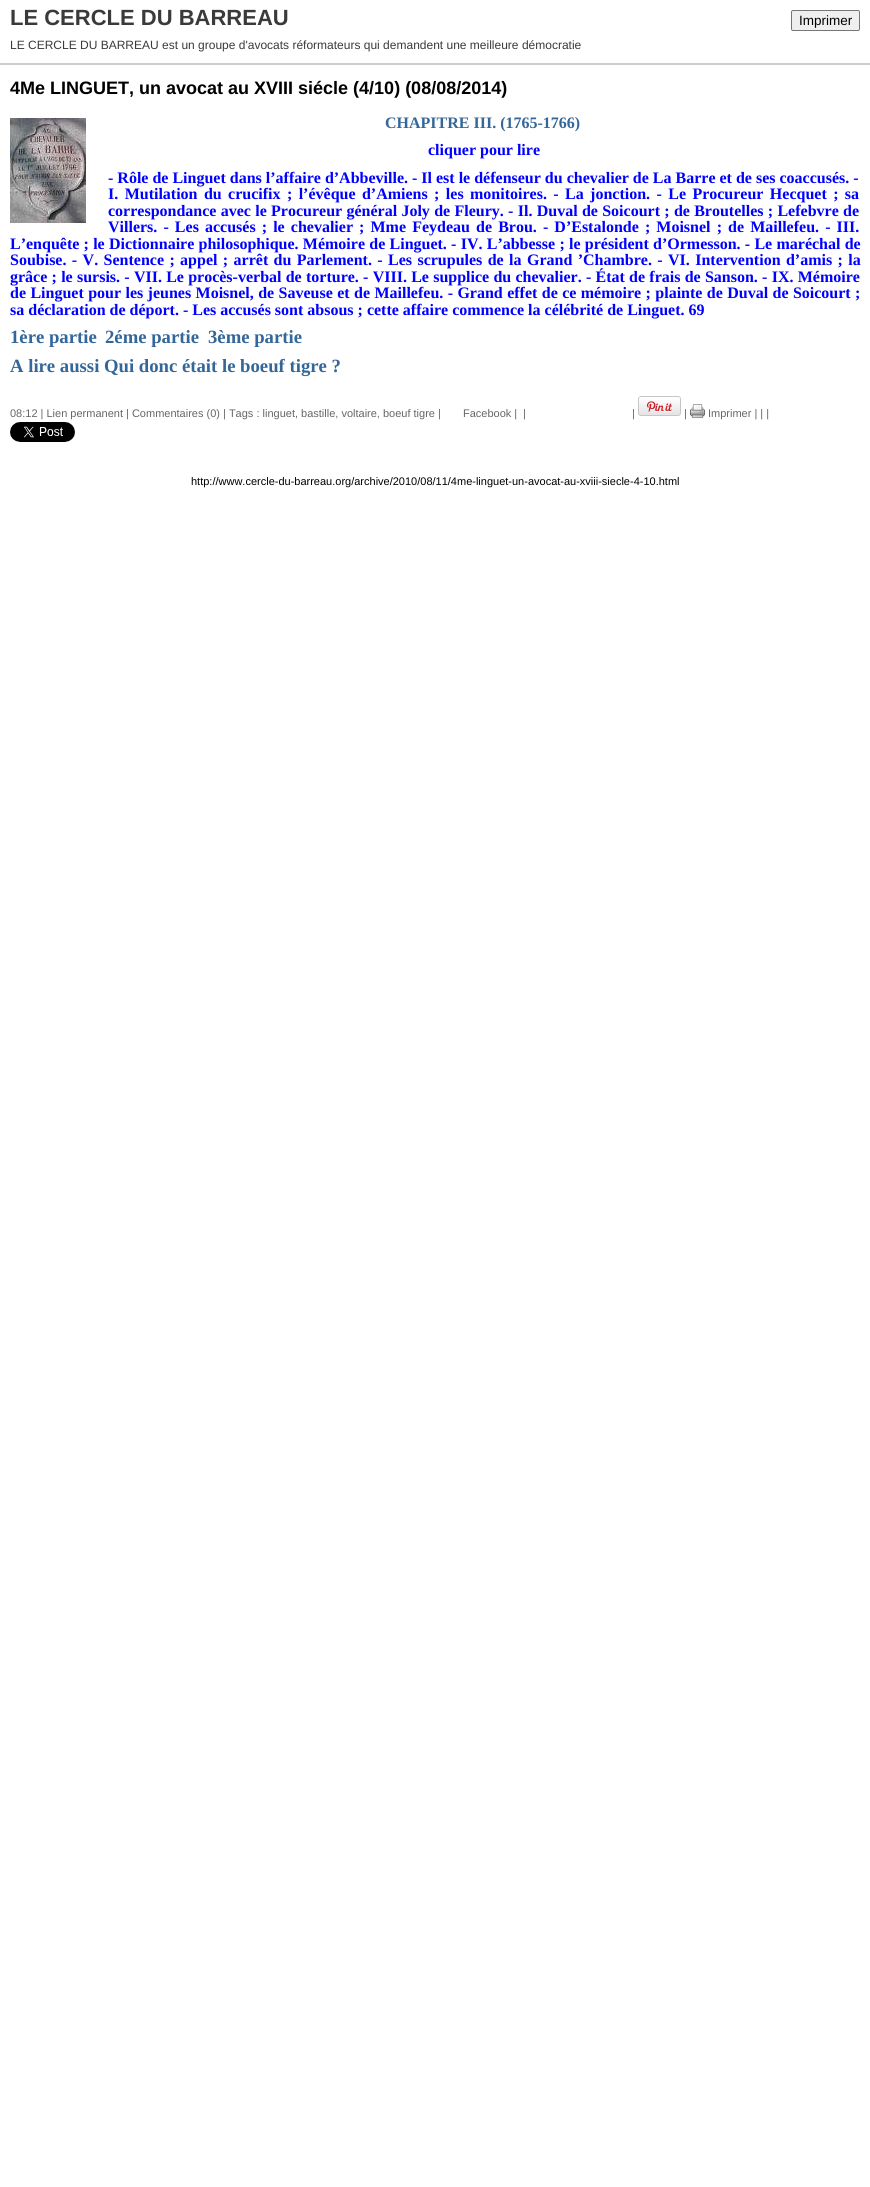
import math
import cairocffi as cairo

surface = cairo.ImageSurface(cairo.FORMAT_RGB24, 870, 2187)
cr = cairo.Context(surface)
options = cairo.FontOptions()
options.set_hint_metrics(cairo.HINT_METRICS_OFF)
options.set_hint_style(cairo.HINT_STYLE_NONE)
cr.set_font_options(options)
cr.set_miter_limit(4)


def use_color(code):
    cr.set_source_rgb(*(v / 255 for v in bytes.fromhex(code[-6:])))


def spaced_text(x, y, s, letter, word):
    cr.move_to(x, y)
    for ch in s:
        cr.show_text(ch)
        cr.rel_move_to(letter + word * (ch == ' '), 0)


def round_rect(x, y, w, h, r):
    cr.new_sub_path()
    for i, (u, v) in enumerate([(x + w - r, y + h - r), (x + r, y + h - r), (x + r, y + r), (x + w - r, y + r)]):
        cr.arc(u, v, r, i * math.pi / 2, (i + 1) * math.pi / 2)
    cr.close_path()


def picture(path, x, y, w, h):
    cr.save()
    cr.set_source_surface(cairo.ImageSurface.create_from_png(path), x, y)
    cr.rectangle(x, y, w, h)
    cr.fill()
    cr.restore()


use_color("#ffffff")
cr.paint()
use_color("#cccccc")
cr.rectangle(0, 63, 870, 2)
cr.fill()
cr.select_font_face("Liberation Sans", cairo.FONT_SLANT_NORMAL, cairo.FONT_WEIGHT_BOLD)
cr.set_font_size(22)
use_color("#3a3a3a")
cr.move_to(10, 25)
cr.show_text("LE CERCLE DU BARREAU")
use_color("#efefef")
round_rect(791.5, 10.5, 68, 20, 1.5)
cr.fill_preserve()
use_color("#767676")
cr.set_line_width(1)
cr.stroke()
cr.select_font_face("Liberation Sans")
cr.set_font_size(13.5)
use_color("#000000")
cr.move_to(799, 25)
cr.show_text("Imprimer")
cr.set_font_size(12)
use_color("#3a3a3a")
cr.move_to(10, 49)
cr.show_text("LE CERCLE DU BARREAU est un groupe d'avocats réformateurs qui demandent une meilleure démocratie")
cr.select_font_face("Liberation Sans", cairo.FONT_SLANT_NORMAL, cairo.FONT_WEIGHT_BOLD)
cr.set_font_size(18)
use_color("#000000")
cr.move_to(10, 94)
cr.show_text("4Me LINGUET, un avocat au XVIII siécle (4/10) (08/08/2014)")
picture("img1.png", 10, 118, 76, 105)
cr.select_font_face("Liberation Serif", cairo.FONT_SLANT_NORMAL, cairo.FONT_WEIGHT_BOLD)
cr.set_font_size(16)
use_color("#336699")
cr.move_to(385, 128)
cr.show_text("CHAPITRE III. (1765-1766)")
use_color("#0000ff")
cr.move_to(428, 155)
cr.show_text("cliquer pour lire")
cr.move_to(108, 183)
cr.show_text("- Rôle de Linguet dans l’affaire d’Abbeville. - Il est le défenseur du chevalier de La Barre et de ses coaccusés. -")
spaced_text(108, 199, "I. Mutilation du crucifix ; l’évêque d’Amiens ; les monitoires. - La jonction. - Le Procureur Hecquet ; sa", 0, 2.4)
spaced_text(108, 216, "correspondance avec le Procureur général Joly de Fleury. - Il. Duval de Soicourt ; de Broutelles ; Lefebvre de", 0, 0.3)
spaced_text(108, 232, "Villers. - Les accusés ; le chevalier ; Mme Feydeau de Brou. - D’Estalonde ; Moisnel ; de Maillefeu. - III.", 0, 2.1)
spaced_text(10, 249, "L’enquête ; le Dictionnaire philosophique. Mémoire de Linguet. - IV. L’abbesse ; le président d’Ormesson. - Le maréchal de", 0, 0.25)
spaced_text(10, 265, "Soubise. - V. Sentence ; appel ; arrêt du Parlement. - Les scrupules de la Grand ’Chambre. - VI. Intervention d’amis ; la", 0, 1.4)
spaced_text(10, 282, "grâce ; le sursis. - VII. Le procès-verbal de torture. - VIII. Le supplice du chevalier. - État de frais de Sanson. - IX. Mémoire", 0, 0.25)
spaced_text(10, 298, "de Linguet pour les jeunes Moisnel, de Saveuse et de Maillefeu. - Grand effet de ce mémoire ; plainte de Duval de Soicourt ;", 0, 0.4)
cr.move_to(10, 315)
cr.show_text("sa déclaration de déport. - Les accusés sont absous ; cette affaire commence la célébrité de Linguet. 69")
cr.set_font_size(18.7)
use_color("#336699")
cr.move_to(10, 343)
cr.show_text("1ère partie")
cr.move_to(105, 343)
cr.show_text("2éme partie")
cr.move_to(208, 343)
cr.show_text("3ème partie")
cr.move_to(10, 372)
cr.show_text("A lire aussi Qui donc était le boeuf tigre ?")
cr.select_font_face("Liberation Sans")
cr.set_font_size(11)
use_color("#666666")
cr.move_to(10, 417)
cr.show_text("08:12 | Lien permanent | Commentaires (0) | Tags : linguet, bastille, voltaire, boeuf tigre |")
cr.move_to(463, 417)
cr.show_text("Facebook |")
cr.move_to(523, 417)
cr.show_text("|")
cr.move_to(632, 417)
cr.show_text("|")
picture("img2.png", 638, 396, 43, 20)
cr.move_to(684, 417)
cr.show_text("|")
picture("img3.png", 690, 404, 15, 15)
cr.move_to(708, 417)
cr.show_text("Imprimer | | |")
picture("img4.png", 10, 422, 65, 20)
use_color("#000000")
cr.move_to(191, 485)
cr.show_text("http://www.cercle-du-barreau.org/archive/2010/08/11/4me-linguet-un-avocat-au-xviii-siecle-4-10.html")
surface.write_to_png("result.png")
